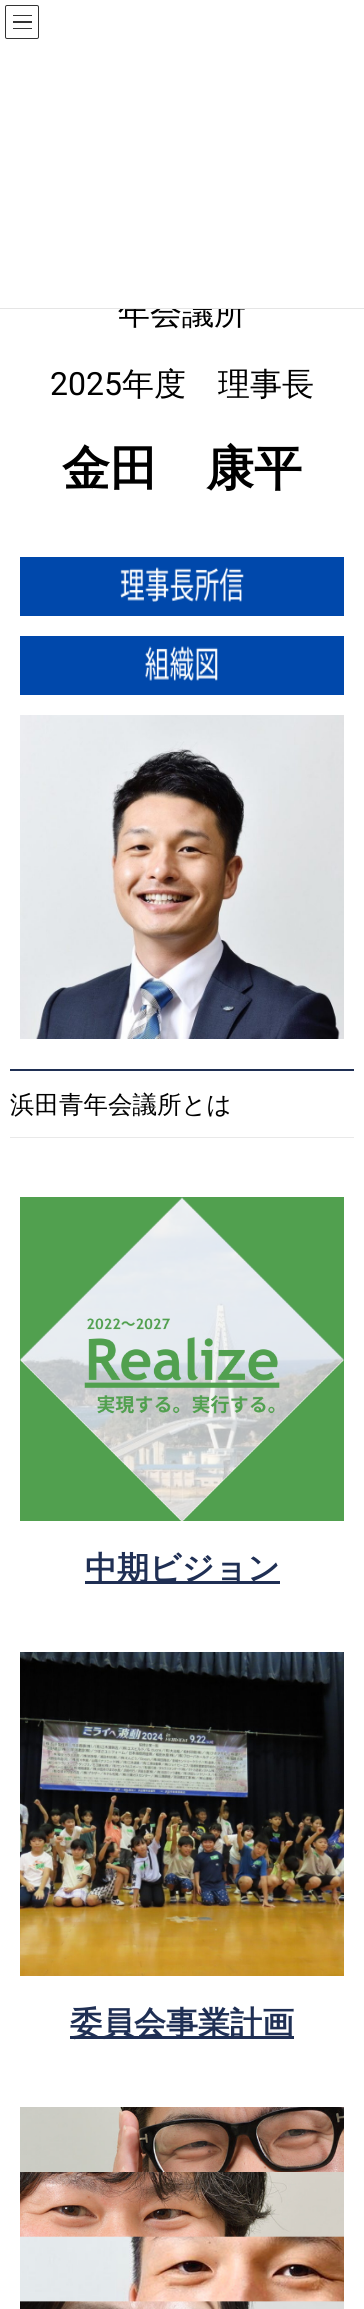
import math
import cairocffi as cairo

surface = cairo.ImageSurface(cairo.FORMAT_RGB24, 364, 2309)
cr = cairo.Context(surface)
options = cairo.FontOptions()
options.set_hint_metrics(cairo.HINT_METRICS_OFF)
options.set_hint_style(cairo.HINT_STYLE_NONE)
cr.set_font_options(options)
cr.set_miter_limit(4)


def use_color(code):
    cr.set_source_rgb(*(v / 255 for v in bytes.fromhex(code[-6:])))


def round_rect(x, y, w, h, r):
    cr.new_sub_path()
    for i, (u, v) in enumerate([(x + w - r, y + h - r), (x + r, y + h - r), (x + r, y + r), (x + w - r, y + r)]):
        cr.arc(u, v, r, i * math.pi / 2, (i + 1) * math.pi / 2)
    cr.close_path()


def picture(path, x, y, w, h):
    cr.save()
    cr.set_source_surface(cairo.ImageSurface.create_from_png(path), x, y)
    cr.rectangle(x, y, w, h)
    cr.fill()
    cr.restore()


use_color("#ffffff")
cr.paint()
use_color("#333333")
cr.rectangle(13, 15, 19, 1)
cr.fill()
cr.rectangle(13, 21, 19, 2)
cr.fill()
cr.rectangle(13, 28, 19, 1)
cr.fill()
round_rect(5.5, 5.5, 33, 33, 1.5)
cr.set_line_width(1)
cr.stroke()
cr.select_font_face("WenQuanYi Zen Hei Medium")
cr.set_font_size(32)
use_color("#000000")
cr.move_to(118, 324)
cr.show_text("年会議所")
use_color("#ffffff")
cr.rectangle(121, 297, 124, 11)
cr.fill()
use_color("#e5e5e5")
cr.rectangle(0, 308, 364, 1)
cr.fill()
cr.select_font_face("Roboto")
use_color("#000000")
cr.move_to(50, 395)
cr.show_text("2025")
cr.select_font_face("WenQuanYi Zen Hei Medium")
cr.move_to(122, 395)
cr.show_text("年度　理事長")
cr.select_font_face("WenQuanYi Zen Hei", cairo.FONT_SLANT_NORMAL, cairo.FONT_WEIGHT_BOLD)
cr.set_font_size(48)
cr.move_to(62, 485)
cr.show_text("金田　康平")
picture("img1.png", 20, 557, 324, 59)
picture("img2.png", 20, 636, 324, 59)
picture("img3.png", 20, 715, 324, 324)
use_color("#1f2f54")
cr.rectangle(10, 1069, 344, 2)
cr.fill()
use_color("#e9e9e9")
cr.rectangle(10, 1137, 344, 1)
cr.fill()
cr.select_font_face("WenQuanYi Zen Hei Medium")
cr.set_font_size(24.5)
use_color("#000000")
cr.move_to(10, 1113)
cr.show_text("浜田青年会議所とは")
picture("img4.png", 20, 1197, 324, 324)
use_color("#1f2f54")
cr.rectangle(85, 1581, 195, 3)
cr.fill()
cr.select_font_face("WenQuanYi Zen Hei", cairo.FONT_SLANT_NORMAL, cairo.FONT_WEIGHT_BOLD)
cr.set_font_size(32)
cr.move_to(85, 1579)
cr.show_text("中期ビジョン")
picture("img5.png", 20, 1652, 324, 324)
cr.rectangle(70, 2036, 224, 3)
cr.fill()
cr.move_to(70, 2034)
cr.show_text("委員会事業計画")
picture("img6.png", 20, 2107, 324, 202)
surface.write_to_png("result.png")
